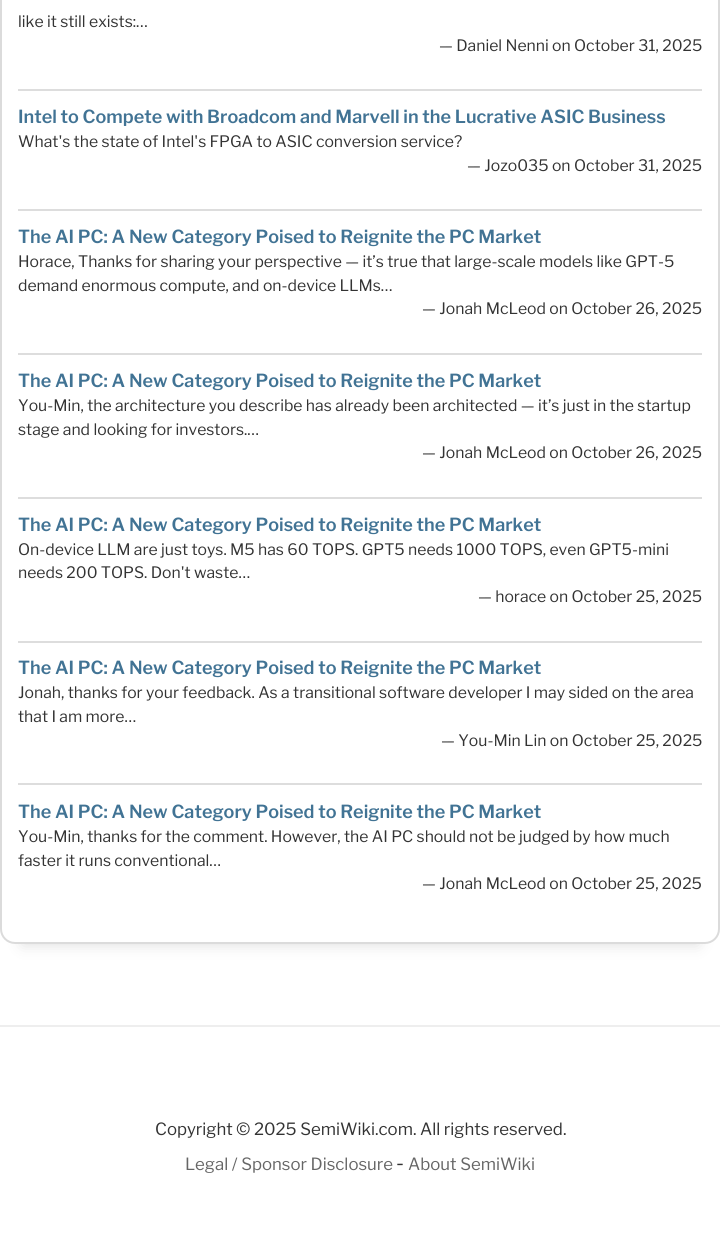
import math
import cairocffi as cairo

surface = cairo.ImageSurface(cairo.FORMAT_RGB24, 720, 1235)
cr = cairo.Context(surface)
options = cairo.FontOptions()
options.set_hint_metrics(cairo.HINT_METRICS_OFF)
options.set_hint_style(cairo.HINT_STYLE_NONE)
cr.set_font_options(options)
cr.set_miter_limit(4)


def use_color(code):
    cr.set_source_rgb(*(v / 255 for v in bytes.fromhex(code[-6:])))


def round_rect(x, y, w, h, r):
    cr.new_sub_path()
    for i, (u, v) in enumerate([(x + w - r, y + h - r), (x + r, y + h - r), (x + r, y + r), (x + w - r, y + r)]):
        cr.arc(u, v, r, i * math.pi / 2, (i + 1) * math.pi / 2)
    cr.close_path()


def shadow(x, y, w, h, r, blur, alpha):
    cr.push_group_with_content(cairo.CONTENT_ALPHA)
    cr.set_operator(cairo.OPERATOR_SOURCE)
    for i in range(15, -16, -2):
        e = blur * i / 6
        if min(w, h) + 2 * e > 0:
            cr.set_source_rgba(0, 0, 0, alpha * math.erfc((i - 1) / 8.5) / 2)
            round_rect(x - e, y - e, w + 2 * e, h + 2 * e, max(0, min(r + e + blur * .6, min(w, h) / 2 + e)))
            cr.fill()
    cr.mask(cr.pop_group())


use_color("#ffffff")
cr.paint()
cr.save()
cr.set_fill_rule(cairo.FILL_RULE_EVEN_ODD)
cr.new_path()
cr.move_to(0, 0)
cr.line_to(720, 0)
cr.line_to(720, 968)
cr.line_to(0, 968)
cr.close_path()
cr.move_to(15, -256)
cr.line_to(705, -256)
cr.curve_to(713.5, -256, 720, -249.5, 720, -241)
cr.line_to(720, 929)
cr.curve_to(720, 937.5, 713.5, 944, 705, 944)
cr.line_to(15, 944)
cr.curve_to(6.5, 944, 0, 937.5, 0, 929)
cr.line_to(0, -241)
cr.curve_to(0, -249.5, 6.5, -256, 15, -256)
cr.close_path()
cr.clip()
use_color("#dbdbdb")
shadow(23, -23, 675, 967, 0, 7.5, 1)
cr.restore()
round_rect(1, -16, 718, 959, 14)
use_color("#dbdbdb")
cr.stroke()
cr.select_font_face("Libre Franklin")
cr.set_font_size(15.75)
use_color("#333333")
cr.move_to(18, 27)
cr.show_text("like it still exists:…")
cr.move_to(439, 51)
cr.show_text("— Daniel Nenni on October 31, 2025")
use_color("#dddddd")
cr.rectangle(18, 89, 684, 2)
cr.fill()
cr.select_font_face("Libre Franklin SemiBold")
cr.set_font_size(18)
use_color("#417394")
cr.move_to(18, 123)
cr.show_text("Intel to Compete with Broadcom and Marvell in the Lucrative ASIC Business")
cr.select_font_face("Libre Franklin")
cr.set_font_size(15.75)
use_color("#333333")
cr.move_to(18, 147)
cr.show_text("What's the state of Intel's FPGA to ASIC conversion service?")
cr.move_to(467, 171)
cr.show_text("— Jozo035 on October 31, 2025")
use_color("#dddddd")
cr.rectangle(18, 209, 684, 2)
cr.fill()
cr.select_font_face("Libre Franklin SemiBold")
cr.set_font_size(18)
use_color("#417394")
cr.move_to(18, 243)
cr.show_text("The AI PC: A New Category Poised to Reignite the PC Market")
cr.select_font_face("Libre Franklin")
cr.set_font_size(15.75)
use_color("#333333")
cr.move_to(18, 267)
cr.show_text("Horace, Thanks for sharing your perspective — it’s true that large-scale models like GPT-5")
cr.move_to(18, 291)
cr.show_text("demand enormous compute, and on-device LLMs…")
cr.move_to(422, 314)
cr.show_text("— Jonah McLeod on October 26, 2025")
use_color("#dddddd")
cr.rectangle(18, 353, 684, 2)
cr.fill()
cr.select_font_face("Libre Franklin SemiBold")
cr.set_font_size(18)
use_color("#417394")
cr.move_to(18, 387)
cr.show_text("The AI PC: A New Category Poised to Reignite the PC Market")
cr.select_font_face("Libre Franklin")
cr.set_font_size(15.75)
use_color("#333333")
cr.move_to(18, 411)
cr.show_text("You-Min, the architecture you describe has already been architected — it’s just in the startup")
cr.move_to(18, 435)
cr.show_text("stage and looking for investors.…")
cr.move_to(422, 458)
cr.show_text("— Jonah McLeod on October 26, 2025")
use_color("#dddddd")
cr.rectangle(18, 497, 684, 2)
cr.fill()
cr.select_font_face("Libre Franklin SemiBold")
cr.set_font_size(18)
use_color("#417394")
cr.move_to(18, 531)
cr.show_text("The AI PC: A New Category Poised to Reignite the PC Market")
cr.select_font_face("Libre Franklin")
cr.set_font_size(15.75)
use_color("#333333")
cr.move_to(18, 555)
cr.show_text("On-device LLM are just toys. M5 has 60 TOPS. GPT5 needs 1000 TOPS, even GPT5-mini")
cr.move_to(18, 578)
cr.show_text("needs 200 TOPS. Don't waste…")
cr.move_to(478, 602)
cr.show_text("— horace on October 25, 2025")
use_color("#dddddd")
cr.rectangle(18, 641, 684, 2)
cr.fill()
cr.select_font_face("Libre Franklin SemiBold")
cr.set_font_size(18)
use_color("#417394")
cr.move_to(18, 674)
cr.show_text("The AI PC: A New Category Poised to Reignite the PC Market")
cr.select_font_face("Libre Franklin")
cr.set_font_size(15.75)
use_color("#333333")
cr.move_to(18, 698)
cr.show_text("Jonah, thanks for your feedback. As a transitional software developer I may sided on the area")
cr.move_to(18, 722)
cr.show_text("that I am more…")
cr.move_to(441, 746)
cr.show_text("— You-Min Lin on October 25, 2025")
use_color("#dddddd")
cr.rectangle(18, 783, 684, 2)
cr.fill()
cr.select_font_face("Libre Franklin SemiBold")
cr.set_font_size(18)
use_color("#417394")
cr.move_to(18, 818)
cr.show_text("The AI PC: A New Category Poised to Reignite the PC Market")
cr.select_font_face("Libre Franklin")
cr.set_font_size(15.75)
use_color("#333333")
cr.move_to(18, 842)
cr.show_text("You-Min, thanks for the comment. However, the AI PC should not be judged by how much")
cr.move_to(18, 866)
cr.show_text("faster it runs conventional…")
cr.move_to(422, 889)
cr.show_text("— Jonah McLeod on October 25, 2025")
use_color("#eeeeee")
cr.rectangle(0, 1025, 720, 2)
cr.fill()
cr.set_font_size(16.8)
use_color("#333333")
cr.move_to(155, 1135)
cr.show_text("Copyright © 2025 SemiWiki.com. All rights reserved.")
use_color("#666666")
cr.move_to(185, 1170)
cr.show_text("Legal / Sponsor Disclosure")
cr.set_font_size(21)
use_color("#333333")
cr.move_to(396, 1170)
cr.show_text("-")
cr.set_font_size(16.8)
use_color("#666666")
cr.move_to(408, 1170)
cr.show_text("About SemiWiki")
surface.write_to_png("result.png")
